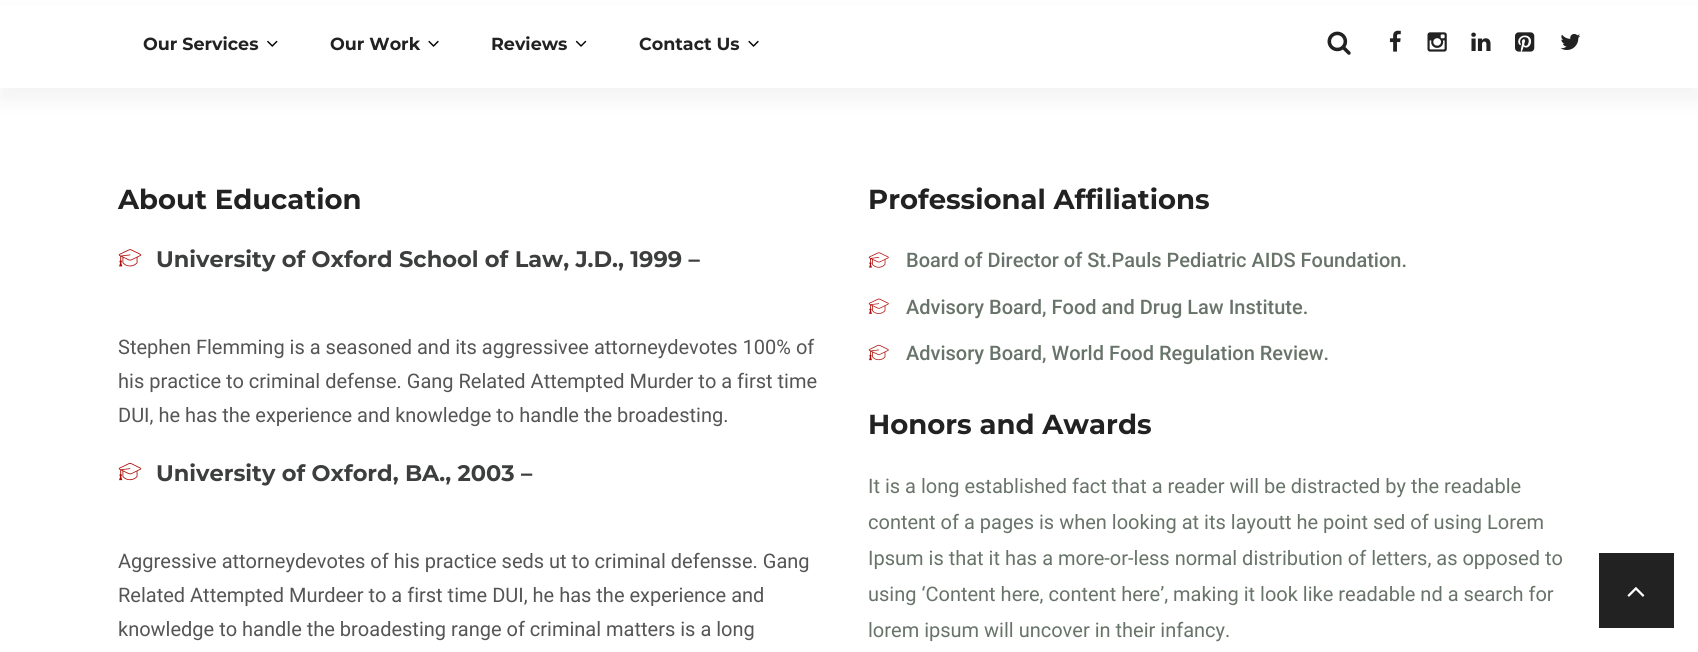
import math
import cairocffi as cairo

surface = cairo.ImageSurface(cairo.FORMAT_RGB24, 1698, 652)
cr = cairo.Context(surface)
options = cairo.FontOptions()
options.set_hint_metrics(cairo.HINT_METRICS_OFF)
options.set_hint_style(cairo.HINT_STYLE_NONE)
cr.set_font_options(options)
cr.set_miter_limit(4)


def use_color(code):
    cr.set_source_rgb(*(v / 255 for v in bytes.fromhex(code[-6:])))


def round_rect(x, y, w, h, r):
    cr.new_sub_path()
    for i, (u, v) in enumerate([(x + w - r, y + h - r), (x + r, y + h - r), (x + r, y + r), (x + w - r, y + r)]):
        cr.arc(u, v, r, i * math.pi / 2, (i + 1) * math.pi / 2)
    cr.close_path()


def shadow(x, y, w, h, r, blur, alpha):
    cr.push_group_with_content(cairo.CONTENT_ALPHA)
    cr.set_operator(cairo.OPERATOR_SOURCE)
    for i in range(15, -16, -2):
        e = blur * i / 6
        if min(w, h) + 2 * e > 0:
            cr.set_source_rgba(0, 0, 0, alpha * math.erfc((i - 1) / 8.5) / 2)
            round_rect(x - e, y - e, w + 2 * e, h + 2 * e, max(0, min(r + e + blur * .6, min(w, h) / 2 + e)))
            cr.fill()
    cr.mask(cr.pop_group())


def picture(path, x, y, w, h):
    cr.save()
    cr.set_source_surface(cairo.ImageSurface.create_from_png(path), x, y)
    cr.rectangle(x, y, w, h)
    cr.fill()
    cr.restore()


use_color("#ffffff")
cr.paint()
use_color("#000000")
shadow(0, 13, 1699, 87, 0, 9.5, 0.05)
use_color("#ffffff")
cr.rectangle(0, 5, 1698, 83)
cr.fill()
cr.select_font_face("Montserrat", cairo.FONT_SLANT_NORMAL, cairo.FONT_WEIGHT_BOLD)
cr.set_font_size(17.5)
use_color("#222222")
cr.move_to(143, 50)
cr.show_text("Our Services")
picture("img1.png", 267, 40, 11, 7)
cr.move_to(330, 50)
cr.show_text("Our Work")
picture("img2.png", 428, 40, 11, 7)
cr.move_to(491, 50)
cr.show_text("Reviews")
picture("img3.png", 575, 40, 12, 7)
cr.move_to(639, 50)
cr.show_text("Contact Us")
picture("img2.png", 748, 40, 11, 7)
picture("img4.png", 1327, 31, 24, 24)
picture("img5.png", 1389, 30, 12, 22)
picture("img6.png", 1427, 32, 20, 20)
picture("img7.png", 1471, 32, 20, 19)
picture("img8.png", 1515, 32, 20, 20)
picture("img9.png", 1560, 33, 21, 17)
cr.set_font_size(27.5)
cr.move_to(118, 209)
cr.show_text("About Education")
picture("img10.png", 118, 249, 24, 18)
cr.set_font_size(22.5)
use_color("#3d3e3e")
cr.move_to(156, 267)
cr.show_text("University of Oxford School of Law, J.D., 1999 –")
cr.select_font_face("Roboto")
cr.set_font_size(20)
use_color("#555555")
cr.move_to(118, 354)
cr.show_text("Stephen Flemming is a seasoned and its aggressivee attorneydevotes 100% of")
cr.move_to(118, 388)
cr.show_text("his practice to criminal defense. Gang Related Attempted Murder to a first time")
cr.move_to(118, 422)
cr.show_text("DUI, he has the experience and knowledge to handle the broadesting.")
picture("img11.png", 118, 463, 24, 18)
cr.select_font_face("Montserrat", cairo.FONT_SLANT_NORMAL, cairo.FONT_WEIGHT_BOLD)
cr.set_font_size(22.5)
use_color("#3d3e3e")
cr.move_to(156, 481)
cr.show_text("University of Oxford, BA., 2003 –")
cr.select_font_face("Roboto")
cr.set_font_size(20)
use_color("#555555")
cr.move_to(118, 568)
cr.show_text("Aggressive attorneydevotes of his practice seds ut to criminal defensse. Gang")
cr.move_to(118, 602)
cr.show_text("Related Attempted Murdeer to a first time DUI, he has the experience and")
cr.move_to(118, 636)
cr.show_text("knowledge to handle the broadesting range of criminal matters is a long")
cr.select_font_face("Montserrat", cairo.FONT_SLANT_NORMAL, cairo.FONT_WEIGHT_BOLD)
cr.set_font_size(27.5)
use_color("#222222")
cr.move_to(868, 209)
cr.show_text("Professional Affiliations")
picture("img12.png", 868, 252, 21, 16)
cr.select_font_face("Roboto Medium")
cr.set_font_size(20)
use_color("#687469")
cr.move_to(906, 267)
cr.show_text("Board of Director of St.Pauls Pediatric AIDS Foundation.")
picture("img13.png", 868, 298, 21, 16)
cr.move_to(906, 314)
cr.show_text("Advisory Board, Food and Drug Law Institute.")
picture("img14.png", 868, 344, 21, 17)
cr.move_to(906, 360)
cr.show_text("Advisory Board, World Food Regulation Review.")
cr.select_font_face("Montserrat", cairo.FONT_SLANT_NORMAL, cairo.FONT_WEIGHT_BOLD)
cr.set_font_size(27.5)
use_color("#222222")
cr.move_to(868, 434)
cr.show_text("Honors and Awards")
cr.select_font_face("Roboto")
cr.set_font_size(20)
use_color("#687469")
cr.move_to(868, 493)
cr.show_text("It is a long established fact that a reader will be distracted by the readable")
cr.move_to(868, 529)
cr.show_text("content of a pages is when looking at its layoutt he point sed of using Lorem")
cr.move_to(868, 565)
cr.show_text("Ipsum is that it has a more-or-less normal distribution of letters, as opposed to")
cr.move_to(868, 601)
cr.show_text("using ‘Content here, content here’, making it look like readable nd a search for")
cr.move_to(868, 637)
cr.show_text("lorem ipsum will uncover in their infancy.")
use_color("#222222")
cr.rectangle(1599, 553, 75, 75)
cr.fill()
picture("img15.png", 1627, 587, 18, 10)
surface.write_to_png("result.png")
